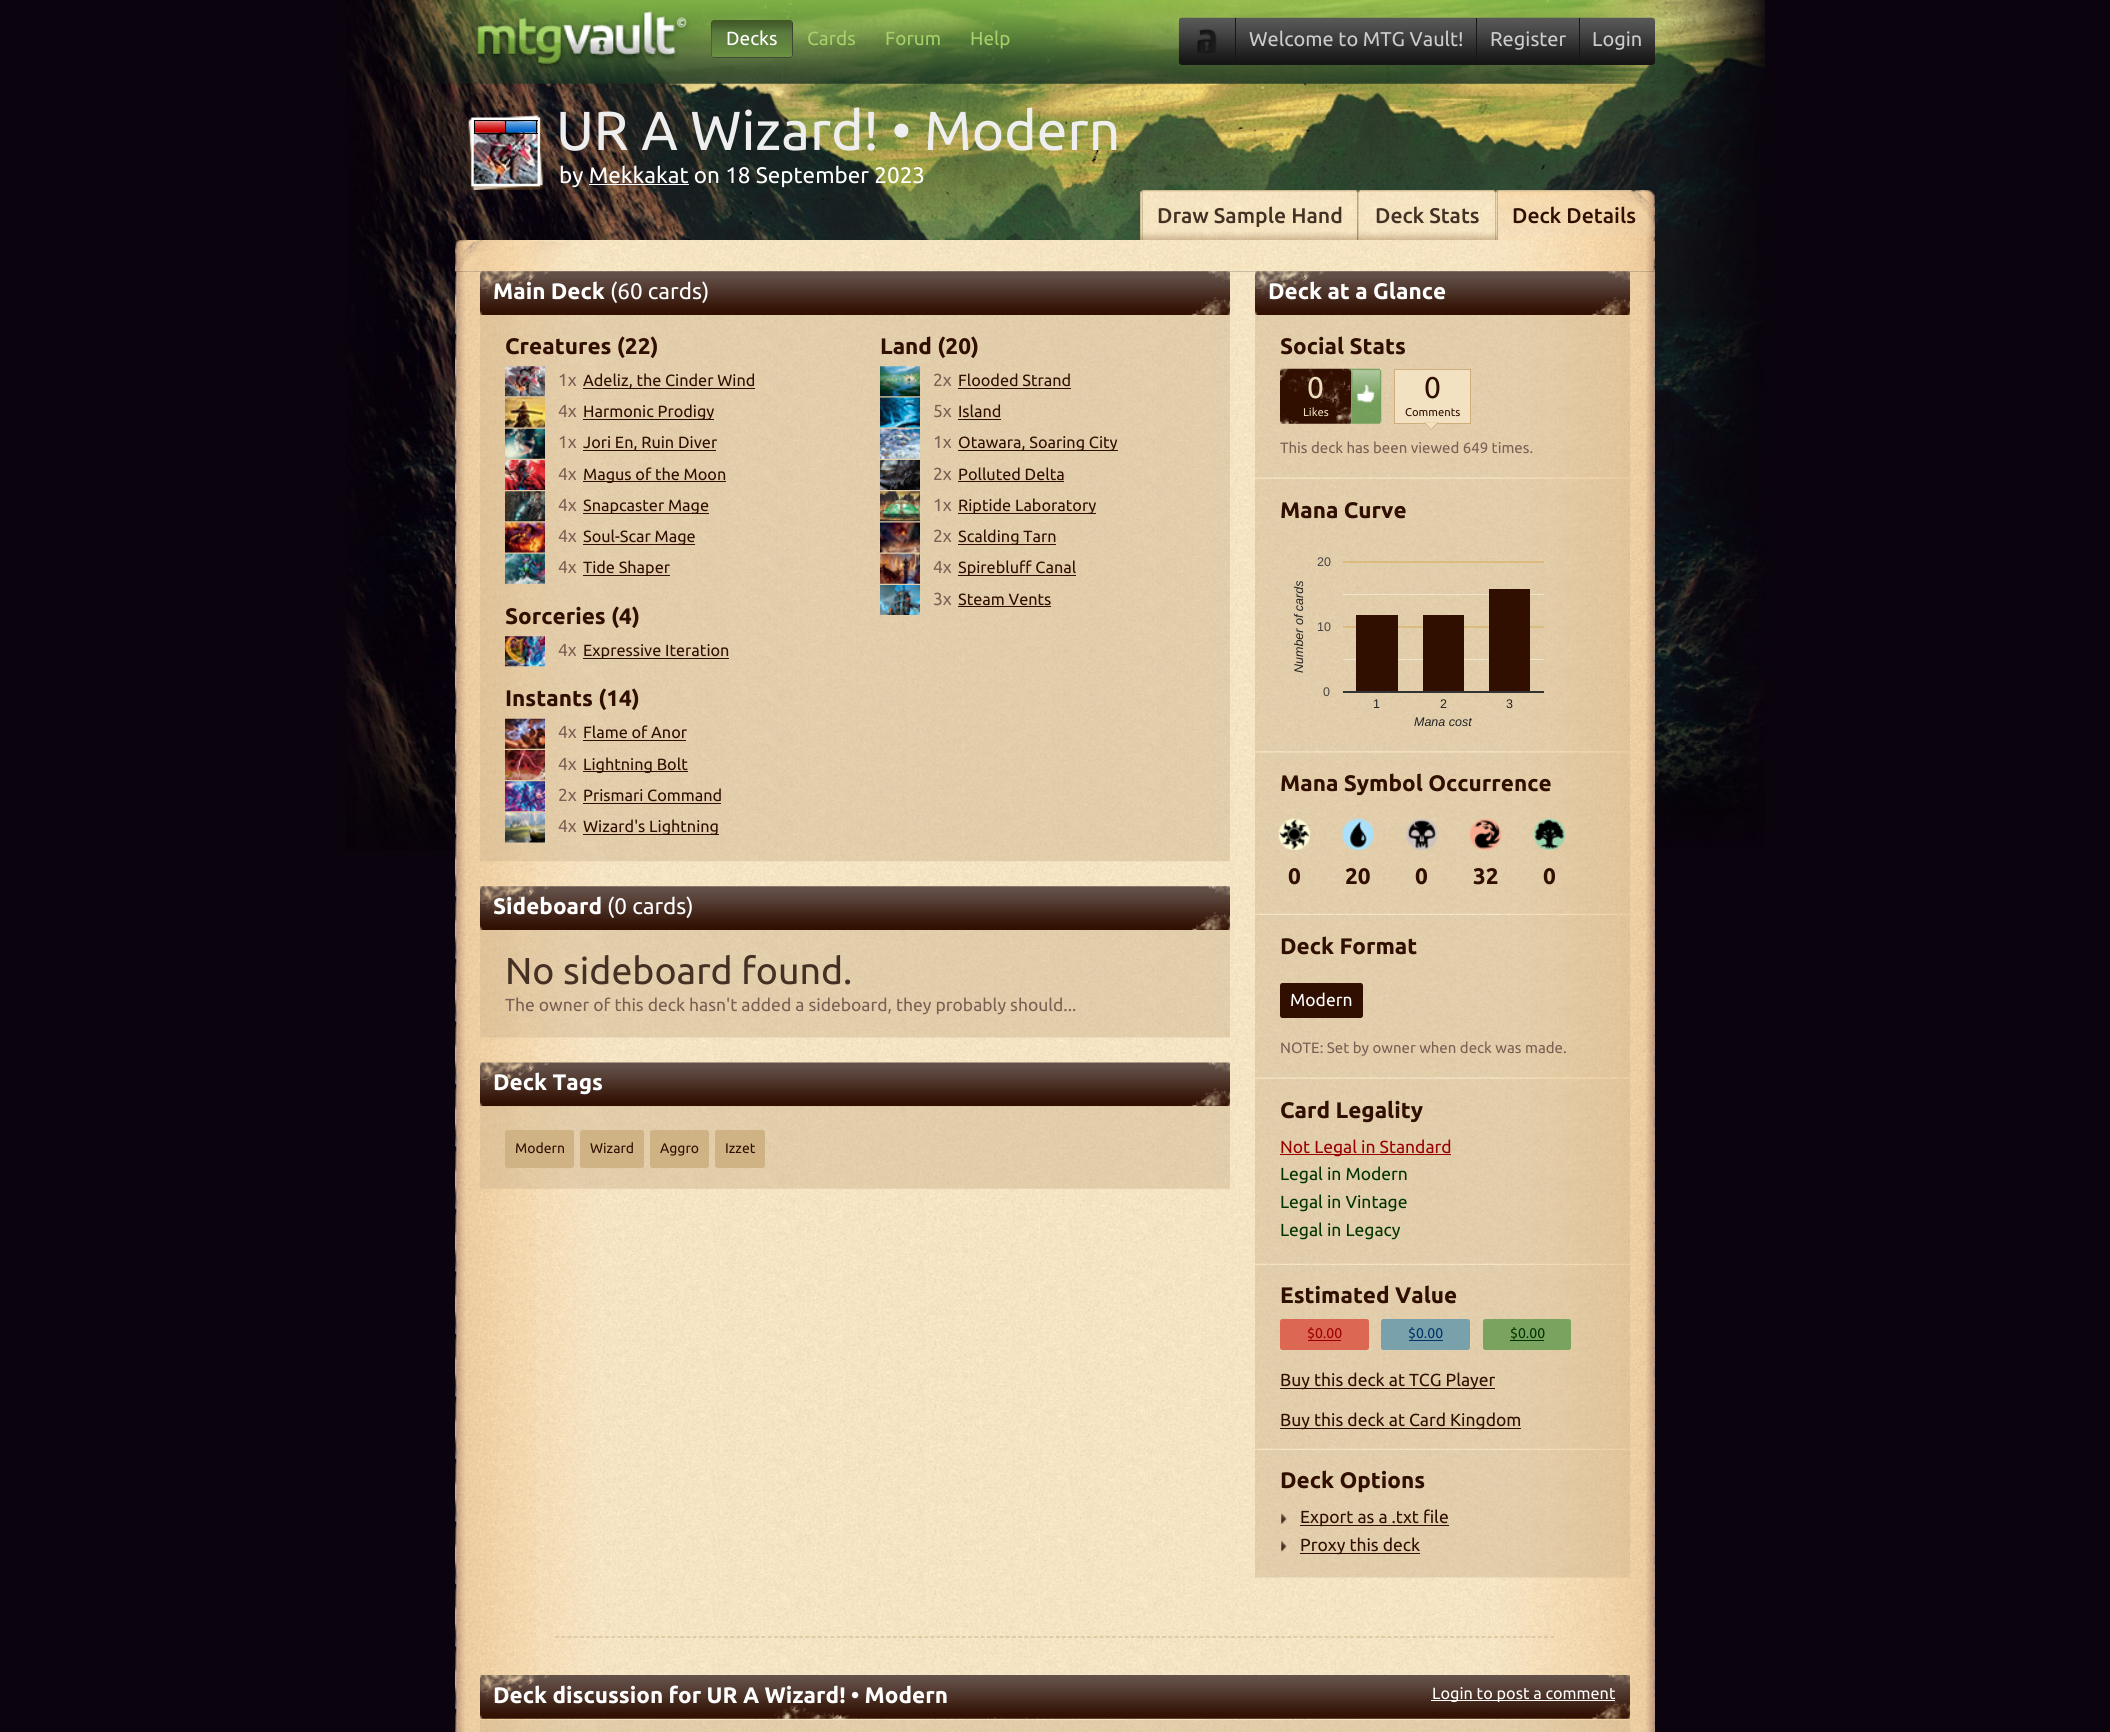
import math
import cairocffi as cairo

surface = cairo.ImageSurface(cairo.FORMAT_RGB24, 2110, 1732)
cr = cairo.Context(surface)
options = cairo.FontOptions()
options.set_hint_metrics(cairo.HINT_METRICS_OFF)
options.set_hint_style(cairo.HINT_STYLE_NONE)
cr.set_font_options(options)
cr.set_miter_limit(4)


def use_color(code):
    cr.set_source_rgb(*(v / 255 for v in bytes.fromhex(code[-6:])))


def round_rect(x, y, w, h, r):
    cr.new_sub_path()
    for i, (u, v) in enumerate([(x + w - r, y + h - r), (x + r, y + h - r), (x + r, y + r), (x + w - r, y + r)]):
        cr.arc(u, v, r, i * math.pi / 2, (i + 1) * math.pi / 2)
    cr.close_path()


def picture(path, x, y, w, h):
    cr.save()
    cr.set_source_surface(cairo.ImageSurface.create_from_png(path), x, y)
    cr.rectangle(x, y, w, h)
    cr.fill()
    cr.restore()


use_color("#0b030e")
cr.paint()
picture("img1.png", 346, 0, 1419, 850)
use_color("#333333")
round_rect(711, 20, 82, 38, 4)
cr.fill()
picture("img2.png", 711, 20, 82, 38)
cr.select_font_face("Ubuntu")
cr.set_font_size(19)
use_color("#ffffff")
cr.move_to(726, 45)
cr.show_text("Decks")
use_color("#a5d168")
cr.move_to(807, 45)
cr.show_text("Cards")
cr.move_to(885, 45)
cr.show_text("Forum")
cr.move_to(970, 45)
cr.show_text("Help")
picture("img3.png", 1178, 17, 477, 48)
use_color("#171717")
cr.rectangle(1235, 18, 1, 47)
cr.fill()
picture("img4.png", 1197, 28, 20, 26)
cr.rectangle(1476, 18, 1, 47)
cr.fill()
cr.set_font_size(20)
use_color("#cccccc")
cr.move_to(1249, 46)
cr.show_text("Welcome to MTG Vault!")
use_color("#171717")
cr.rectangle(1579, 18, 1, 47)
cr.fill()
use_color("#cccccc")
cr.move_to(1490, 46)
cr.show_text("Register")
cr.move_to(1592, 46)
cr.show_text("Login")
picture("img5.png", 467, 114, 77, 76)
picture("img6.png", 473, 120, 65, 64)
use_color("#000000")
cr.rectangle(474, 120, 64, 1)
cr.fill()
cr.rectangle(474, 133, 64, 1)
cr.fill()
cr.rectangle(474, 120, 1, 14)
cr.fill()
picture("img7.png", 475, 121, 32, 12)
cr.rectangle(505, 121, 1, 12)
cr.fill()
picture("img8.png", 506, 121, 32, 12)
cr.rectangle(536, 121, 1, 12)
cr.fill()
cr.set_font_size(55)
use_color("#eeeeee")
cr.move_to(556, 150)
cr.show_text("UR A Wizard! • Modern")
cr.set_font_size(22.5)
use_color("#ffffff")
cr.move_to(559, 183)
cr.show_text("by Mekkakat on 18 September 2023")
cr.rectangle(589, 184, 100, 1)
cr.fill()
picture("img9.png", 1140, 190, 3, 50)
picture("img10.png", 1142, 190, 216, 50)
cr.select_font_face("Ubuntu Medium")
cr.set_font_size(21.25)
use_color("#453025")
cr.move_to(1157, 223)
cr.show_text("Draw Sample Hand")
picture("img11.png", 1357, 190, 3, 50)
picture("img12.png", 1360, 190, 135, 50)
cr.move_to(1375, 223)
cr.show_text("Deck Stats")
picture("img13.png", 1495, 190, 3, 50)
picture("img14.png", 1497, 190, 158, 50)
use_color("#300e00")
cr.move_to(1512, 223)
cr.show_text("Deck Details")
picture("img15.png", 455, 240, 1200, 32)
picture("img16.png", 455, 271, 1200, 1461)
picture("img17.png", 480, 271, 750, 44)
cr.select_font_face("Ubuntu", cairo.FONT_SLANT_NORMAL, cairo.FONT_WEIGHT_BOLD)
cr.set_font_size(22.5)
use_color("#ffffff")
cr.move_to(493, 299)
cr.show_text("Main Deck")
cr.select_font_face("Ubuntu")
cr.move_to(610, 299)
cr.show_text("(60 cards)")
picture("img18.png", 480, 315, 750, 547)
cr.select_font_face("Ubuntu", cairo.FONT_SLANT_NORMAL, cairo.FONT_WEIGHT_BOLD)
use_color("#300e00")
cr.move_to(505, 354)
cr.show_text("Creatures (22)")
picture("img19.png", 505, 366, 40, 31)
cr.select_font_face("Ubuntu")
cr.set_font_size(17.5)
use_color("#7a5f54")
cr.move_to(558, 386)
cr.show_text("1x")
use_color("#300e00")
cr.rectangle(583, 388, 172, 1)
cr.fill()
cr.set_font_size(16.25)
cr.move_to(583, 386)
cr.show_text("Adeliz, the Cinder Wind")
picture("img20.png", 505, 397, 40, 31)
cr.set_font_size(17.5)
use_color("#7a5f54")
cr.move_to(558, 417)
cr.show_text("4x")
use_color("#300e00")
cr.rectangle(583, 419, 131, 1)
cr.fill()
cr.set_font_size(16.25)
cr.move_to(583, 417)
cr.show_text("Harmonic Prodigy")
picture("img21.png", 505, 428, 40, 31)
cr.set_font_size(17.5)
use_color("#7a5f54")
cr.move_to(558, 448)
cr.show_text("1x")
use_color("#300e00")
cr.rectangle(583, 450, 133, 1)
cr.fill()
cr.set_font_size(16.25)
cr.move_to(583, 448)
cr.show_text("Jori En, Ruin Diver")
picture("img22.png", 505, 460, 40, 30)
cr.set_font_size(17.5)
use_color("#7a5f54")
cr.move_to(558, 480)
cr.show_text("4x")
use_color("#300e00")
cr.rectangle(583, 481, 143, 1)
cr.fill()
cr.set_font_size(16.25)
cr.move_to(583, 480)
cr.show_text("Magus of the Moon")
picture("img23.png", 505, 491, 40, 31)
cr.set_font_size(17.5)
use_color("#7a5f54")
cr.move_to(558, 511)
cr.show_text("4x")
use_color("#300e00")
cr.rectangle(583, 513, 126, 1)
cr.fill()
cr.set_font_size(16.25)
cr.move_to(583, 511)
cr.show_text("Snapcaster Mage")
picture("img24.png", 505, 522, 40, 31)
cr.set_font_size(17.5)
use_color("#7a5f54")
cr.move_to(558, 542)
cr.show_text("4x")
use_color("#300e00")
cr.rectangle(583, 544, 112, 1)
cr.fill()
cr.set_font_size(16.25)
cr.move_to(583, 542)
cr.show_text("Soul-Scar Mage")
picture("img25.png", 505, 553, 40, 31)
cr.set_font_size(17.5)
use_color("#7a5f54")
cr.move_to(558, 573)
cr.show_text("4x")
use_color("#300e00")
cr.rectangle(583, 575, 87, 1)
cr.fill()
cr.set_font_size(16.25)
cr.move_to(583, 573)
cr.show_text("Tide Shaper")
cr.select_font_face("Ubuntu", cairo.FONT_SLANT_NORMAL, cairo.FONT_WEIGHT_BOLD)
cr.set_font_size(22.5)
cr.move_to(505, 624)
cr.show_text("Sorceries (4)")
picture("img26.png", 505, 636, 40, 31)
cr.select_font_face("Ubuntu")
cr.set_font_size(17.5)
use_color("#7a5f54")
cr.move_to(558, 656)
cr.show_text("4x")
use_color("#300e00")
cr.rectangle(583, 658, 146, 1)
cr.fill()
cr.set_font_size(16.25)
cr.move_to(583, 656)
cr.show_text("Expressive Iteration")
cr.select_font_face("Ubuntu", cairo.FONT_SLANT_NORMAL, cairo.FONT_WEIGHT_BOLD)
cr.set_font_size(22.5)
cr.move_to(505, 706)
cr.show_text("Instants (14)")
picture("img27.png", 505, 718, 40, 31)
cr.select_font_face("Ubuntu")
cr.set_font_size(17.5)
use_color("#7a5f54")
cr.move_to(558, 738)
cr.show_text("4x")
cr.set_font_size(16.25)
use_color("#300e00")
cr.move_to(583, 738)
cr.show_text("Flame of Anor")
cr.rectangle(583, 740, 103, 1)
cr.fill()
picture("img28.png", 505, 750, 40, 30)
cr.set_font_size(17.5)
use_color("#7a5f54")
cr.move_to(558, 770)
cr.show_text("4x")
use_color("#300e00")
cr.rectangle(583, 771, 105, 1)
cr.fill()
cr.set_font_size(16.25)
cr.move_to(583, 770)
cr.show_text("Lightning Bolt")
picture("img29.png", 505, 781, 40, 31)
cr.set_font_size(17.5)
use_color("#7a5f54")
cr.move_to(558, 801)
cr.show_text("2x")
cr.set_font_size(16.25)
use_color("#300e00")
cr.move_to(583, 801)
cr.show_text("Prismari Command")
cr.rectangle(583, 803, 138, 1)
cr.fill()
picture("img30.png", 505, 812, 40, 31)
cr.set_font_size(17.5)
use_color("#7a5f54")
cr.move_to(558, 832)
cr.show_text("4x")
use_color("#300e00")
cr.rectangle(583, 834, 136, 1)
cr.fill()
cr.set_font_size(16.25)
cr.move_to(583, 832)
cr.show_text("Wizard's Lightning")
cr.select_font_face("Ubuntu", cairo.FONT_SLANT_NORMAL, cairo.FONT_WEIGHT_BOLD)
cr.set_font_size(22.5)
cr.move_to(880, 354)
cr.show_text("Land (20)")
picture("img31.png", 880, 366, 40, 31)
cr.select_font_face("Ubuntu")
cr.set_font_size(17.5)
use_color("#7a5f54")
cr.move_to(933, 386)
cr.show_text("2x")
cr.set_font_size(16.25)
use_color("#300e00")
cr.move_to(958, 386)
cr.show_text("Flooded Strand")
cr.rectangle(958, 388, 113, 1)
cr.fill()
picture("img32.png", 880, 397, 40, 31)
cr.set_font_size(17.5)
use_color("#7a5f54")
cr.move_to(933, 417)
cr.show_text("5x")
cr.set_font_size(16.25)
use_color("#300e00")
cr.move_to(958, 417)
cr.show_text("Island")
cr.rectangle(958, 419, 43, 1)
cr.fill()
picture("img33.png", 880, 428, 40, 31)
cr.set_font_size(17.5)
use_color("#7a5f54")
cr.move_to(933, 448)
cr.show_text("1x")
use_color("#300e00")
cr.rectangle(958, 450, 160, 1)
cr.fill()
cr.set_font_size(16.25)
cr.move_to(958, 448)
cr.show_text("Otawara, Soaring City")
picture("img34.png", 880, 460, 40, 30)
cr.set_font_size(17.5)
use_color("#7a5f54")
cr.move_to(933, 480)
cr.show_text("2x")
cr.set_font_size(16.25)
use_color("#300e00")
cr.move_to(958, 480)
cr.show_text("Polluted Delta")
cr.rectangle(958, 481, 106, 1)
cr.fill()
picture("img35.png", 880, 491, 40, 31)
cr.set_font_size(17.5)
use_color("#7a5f54")
cr.move_to(933, 511)
cr.show_text("1x")
use_color("#300e00")
cr.rectangle(958, 513, 138, 1)
cr.fill()
cr.set_font_size(16.25)
cr.move_to(958, 511)
cr.show_text("Riptide Laboratory")
picture("img36.png", 880, 522, 40, 31)
cr.set_font_size(17.5)
use_color("#7a5f54")
cr.move_to(933, 542)
cr.show_text("2x")
use_color("#300e00")
cr.rectangle(958, 544, 98, 1)
cr.fill()
cr.set_font_size(16.25)
cr.move_to(958, 542)
cr.show_text("Scalding Tarn")
picture("img37.png", 880, 553, 40, 31)
cr.set_font_size(17.5)
use_color("#7a5f54")
cr.move_to(933, 573)
cr.show_text("4x")
use_color("#300e00")
cr.rectangle(958, 575, 118, 1)
cr.fill()
cr.set_font_size(16.25)
cr.move_to(958, 573)
cr.show_text("Spirebluff Canal")
picture("img38.png", 880, 585, 40, 30)
cr.set_font_size(17.5)
use_color("#7a5f54")
cr.move_to(933, 605)
cr.show_text("3x")
cr.set_font_size(16.25)
use_color("#300e00")
cr.move_to(958, 605)
cr.show_text("Steam Vents")
cr.rectangle(958, 606, 93, 1)
cr.fill()
picture("img39.png", 480, 886, 750, 44)
cr.select_font_face("Ubuntu", cairo.FONT_SLANT_NORMAL, cairo.FONT_WEIGHT_BOLD)
cr.set_font_size(22.5)
use_color("#ffffff")
cr.move_to(493, 914)
cr.show_text("Sideboard")
cr.select_font_face("Ubuntu")
cr.move_to(607, 914)
cr.show_text("(0 cards)")
picture("img40.png", 480, 930, 750, 108)
cr.set_font_size(37.5)
use_color("#453025")
cr.move_to(505, 984)
cr.show_text("No sideboard found.")
cr.set_font_size(17.5)
use_color("#7a5f54")
cr.move_to(505, 1011)
cr.show_text("The owner of this deck hasn't added a sideboard, they probably should...")
picture("img41.png", 480, 1062, 750, 45)
cr.select_font_face("Ubuntu", cairo.FONT_SLANT_NORMAL, cairo.FONT_WEIGHT_BOLD)
cr.set_font_size(22.5)
use_color("#ffffff")
cr.move_to(493, 1090)
cr.show_text("Deck Tags")
picture("img42.png", 480, 1106, 750, 83)
use_color("#d0b385")
round_rect(505, 1130, 69, 38, 2.5)
cr.fill()
cr.select_font_face("Ubuntu")
cr.set_font_size(14)
use_color("#300e00")
cr.move_to(515, 1153)
cr.show_text("Modern")
use_color("#d0b385")
round_rect(580, 1130, 64, 38, 2.5)
cr.fill()
use_color("#300e00")
cr.move_to(590, 1153)
cr.show_text("Wizard")
use_color("#d0b385")
round_rect(650, 1130, 59, 38, 2.5)
cr.fill()
use_color("#300e00")
cr.move_to(660, 1153)
cr.show_text("Aggro")
use_color("#d0b385")
round_rect(715, 1130, 50, 38, 2.5)
cr.fill()
use_color("#300e00")
cr.move_to(725, 1153)
cr.show_text("Izzet")
picture("img43.png", 1255, 271, 375, 44)
cr.select_font_face("Ubuntu", cairo.FONT_SLANT_NORMAL, cairo.FONT_WEIGHT_BOLD)
cr.set_font_size(22.5)
use_color("#ffffff")
cr.move_to(1268, 299)
cr.show_text("Deck at a Glance")
picture("img44.png", 1255, 315, 375, 163)
use_color("#300e00")
cr.move_to(1280, 354)
cr.show_text("Social Stats")
picture("img45.png", 1280, 368, 72, 56)
cr.select_font_face("Ubuntu")
cr.set_font_size(30)
use_color("#eddebc")
cr.move_to(1307, 398)
cr.show_text("0")
cr.set_font_size(11.25)
cr.move_to(1303, 416)
cr.show_text("Likes")
picture("img46.png", 1351, 368, 31, 56)
use_color("#f3e2c2")
cr.rectangle(1394.5, 369.5, 76, 54)
cr.fill_preserve()
use_color("#cfae7b")
cr.set_line_width(1)
cr.stroke()
cr.set_font_size(30)
use_color("#300e00")
cr.move_to(1424, 398)
cr.show_text("0")
cr.set_font_size(11.25)
cr.move_to(1405, 416)
cr.show_text("Comments")
use_color("#cfae7b")
cr.new_path()
cr.move_to(1424, 422.5)
cr.line_to(1439, 422.5)
cr.line_to(1431, 430)
cr.close_path()
cr.fill()
use_color("#f3e2c2")
cr.new_path()
cr.move_to(1425, 422.5)
cr.line_to(1437.5, 422.5)
cr.line_to(1431, 429)
cr.close_path()
cr.fill()
cr.set_font_size(15)
use_color("#7a5f54")
cr.move_to(1280, 453)
cr.show_text("This deck has been viewed 649 times.")
picture("img47.png", 1255, 478, 375, 274)
cr.select_font_face("Ubuntu", cairo.FONT_SLANT_NORMAL, cairo.FONT_WEIGHT_BOLD)
cr.set_font_size(22.5)
use_color("#300e00")
cr.move_to(1280, 518)
cr.show_text("Mana Curve")
cr.select_font_face("Liberation Sans")
cr.set_font_size(12.5)
use_color("#444444")
cr.move_to(1317, 566)
cr.show_text("20")
use_color("#dbbb7f")
cr.rectangle(1343, 561, 201, 2)
cr.fill()
cr.select_font_face("Liberation Sans", cairo.FONT_SLANT_ITALIC)
use_color("#222222")
cr.save()
cr.translate(1303, 673)
cr.rotate(-90 * math.pi / 180)
cr.move_to(0, 0)
cr.show_text("Number of cards")
cr.restore()
cr.select_font_face("Liberation Sans")
use_color("#444444")
cr.move_to(1317, 631)
cr.show_text("10")
use_color("#dbbb7f")
cr.rectangle(1343, 626, 201, 2)
cr.fill()
use_color("#f1e4cc")
cr.rectangle(1343, 594, 201, 1)
cr.fill()
cr.rectangle(1343, 659, 201, 1)
cr.fill()
use_color("#300e00")
cr.rectangle(1356, 615, 42, 76)
cr.fill()
use_color("#444444")
cr.move_to(1323, 696)
cr.show_text("0")
use_color("#333333")
cr.rectangle(1343, 691, 201, 2)
cr.fill()
use_color("#222222")
cr.move_to(1373, 708)
cr.show_text("1")
cr.move_to(1440, 708)
cr.show_text("2")
use_color("#300e00")
cr.rectangle(1423, 615, 41, 76)
cr.fill()
use_color("#222222")
cr.move_to(1506, 708)
cr.show_text("3")
use_color("#300e00")
cr.rectangle(1489, 589, 41, 102)
cr.fill()
cr.select_font_face("Liberation Sans", cairo.FONT_SLANT_ITALIC)
use_color("#222222")
cr.move_to(1414, 726)
cr.show_text("Mana cost")
picture("img48.png", 1255, 752, 375, 162)
cr.select_font_face("Ubuntu", cairo.FONT_SLANT_NORMAL, cairo.FONT_WEIGHT_BOLD)
cr.set_font_size(22.5)
use_color("#300e00")
cr.move_to(1280, 791)
cr.show_text("Mana Symbol Occurrence")
picture("img49.png", 1278, 818, 32, 32)
picture("img50.png", 1342, 818, 32, 32)
picture("img51.png", 1406, 818, 32, 32)
picture("img52.png", 1470, 818, 32, 32)
picture("img53.png", 1533, 818, 32, 32)
cr.move_to(1288, 884)
cr.show_text("0")
cr.move_to(1345, 884)
cr.show_text("20")
cr.move_to(1415, 884)
cr.show_text("0")
cr.move_to(1473, 884)
cr.show_text("32")
cr.move_to(1543, 884)
cr.show_text("0")
picture("img54.png", 1255, 915, 375, 163)
cr.move_to(1280, 954)
cr.show_text("Deck Format")
round_rect(1280, 983, 83, 35, 2.5)
cr.fill()
cr.select_font_face("Ubuntu")
cr.set_font_size(17.5)
use_color("#ffffff")
cr.move_to(1290, 1006)
cr.show_text("Modern")
cr.set_font_size(15)
use_color("#7a5f54")
cr.move_to(1280, 1053)
cr.show_text("NOTE: Set by owner when deck was made.")
picture("img55.png", 1255, 1078, 375, 186)
cr.select_font_face("Ubuntu", cairo.FONT_SLANT_NORMAL, cairo.FONT_WEIGHT_BOLD)
cr.set_font_size(22.5)
use_color("#300e00")
cr.move_to(1280, 1118)
cr.show_text("Card Legality")
use_color("#990000")
cr.rectangle(1280, 1154, 171, 1)
cr.fill()
cr.select_font_face("Ubuntu")
cr.set_font_size(17.5)
cr.move_to(1280, 1153)
cr.show_text("Not Legal in Standard")
use_color("#003300")
cr.move_to(1280, 1180)
cr.show_text("Legal in Modern")
cr.move_to(1280, 1208)
cr.show_text("Legal in Vintage")
cr.move_to(1280, 1236)
cr.show_text("Legal in Legacy")
picture("img56.png", 1255, 1265, 375, 184)
cr.select_font_face("Ubuntu", cairo.FONT_SLANT_NORMAL, cairo.FONT_WEIGHT_BOLD)
cr.set_font_size(22.5)
use_color("#300e00")
cr.move_to(1280, 1303)
cr.show_text("Estimated Value")
use_color("#dc6752")
round_rect(1280, 1319, 89, 31, 2.5)
cr.fill()
cr.select_font_face("Ubuntu")
cr.set_font_size(14)
use_color("#990000")
cr.move_to(1307, 1338)
cr.show_text("$0.00")
cr.rectangle(1308, 1340, 33, 1)
cr.fill()
use_color("#78a1ab")
round_rect(1381, 1319, 89, 31, 2.5)
cr.fill()
use_color("#003366")
cr.move_to(1408, 1338)
cr.show_text("$0.00")
cr.rectangle(1409, 1340, 34, 1)
cr.fill()
use_color("#79a35f")
round_rect(1483, 1319, 88, 31, 2.5)
cr.fill()
use_color("#003300")
cr.move_to(1510, 1338)
cr.show_text("$0.00")
cr.rectangle(1510, 1340, 34, 1)
cr.fill()
use_color("#300e00")
cr.rectangle(1280, 1388, 215, 1)
cr.fill()
cr.set_font_size(17.5)
cr.move_to(1280, 1386)
cr.show_text("Buy this deck at TCG Player")
cr.rectangle(1280, 1428, 241, 1)
cr.fill()
cr.move_to(1280, 1426)
cr.show_text("Buy this deck at Card Kingdom")
picture("img57.png", 1255, 1450, 375, 128)
cr.select_font_face("Ubuntu", cairo.FONT_SLANT_NORMAL, cairo.FONT_WEIGHT_BOLD)
cr.set_font_size(22.5)
cr.move_to(1280, 1488)
cr.show_text("Deck Options")
picture("img58.png", 1281, 1513, 6, 11)
cr.rectangle(1300, 1525, 149, 1)
cr.fill()
cr.select_font_face("Ubuntu")
cr.set_font_size(17.5)
cr.move_to(1300, 1523)
cr.show_text("Export as a .txt file")
picture("img59.png", 1281, 1541, 6, 11)
cr.rectangle(1300, 1553, 120, 1)
cr.fill()
cr.move_to(1300, 1551)
cr.show_text("Proxy this deck")
cr.new_path()
cr.move_to(555, 1637)
cr.line_to(1555, 1637)
use_color("#d4b88c")
cr.set_line_width(1.2)
cr.set_dash([3.75, 2.51])
cr.stroke()
picture("img60.png", 480, 1675, 1150, 44)
cr.select_font_face("Ubuntu", cairo.FONT_SLANT_NORMAL, cairo.FONT_WEIGHT_BOLD)
cr.set_font_size(22.5)
use_color("#ffffff")
cr.move_to(493, 1703)
cr.show_text("Deck discussion for UR A Wizard! • Modern")
cr.rectangle(1431, 1700, 184, 1)
cr.fill()
cr.select_font_face("Ubuntu")
cr.set_font_size(16.25)
cr.move_to(1432, 1699)
cr.show_text("Login to post a comment")
picture("img61.png", 480, 1720, 1150, 12)
surface.write_to_png("result.png")
